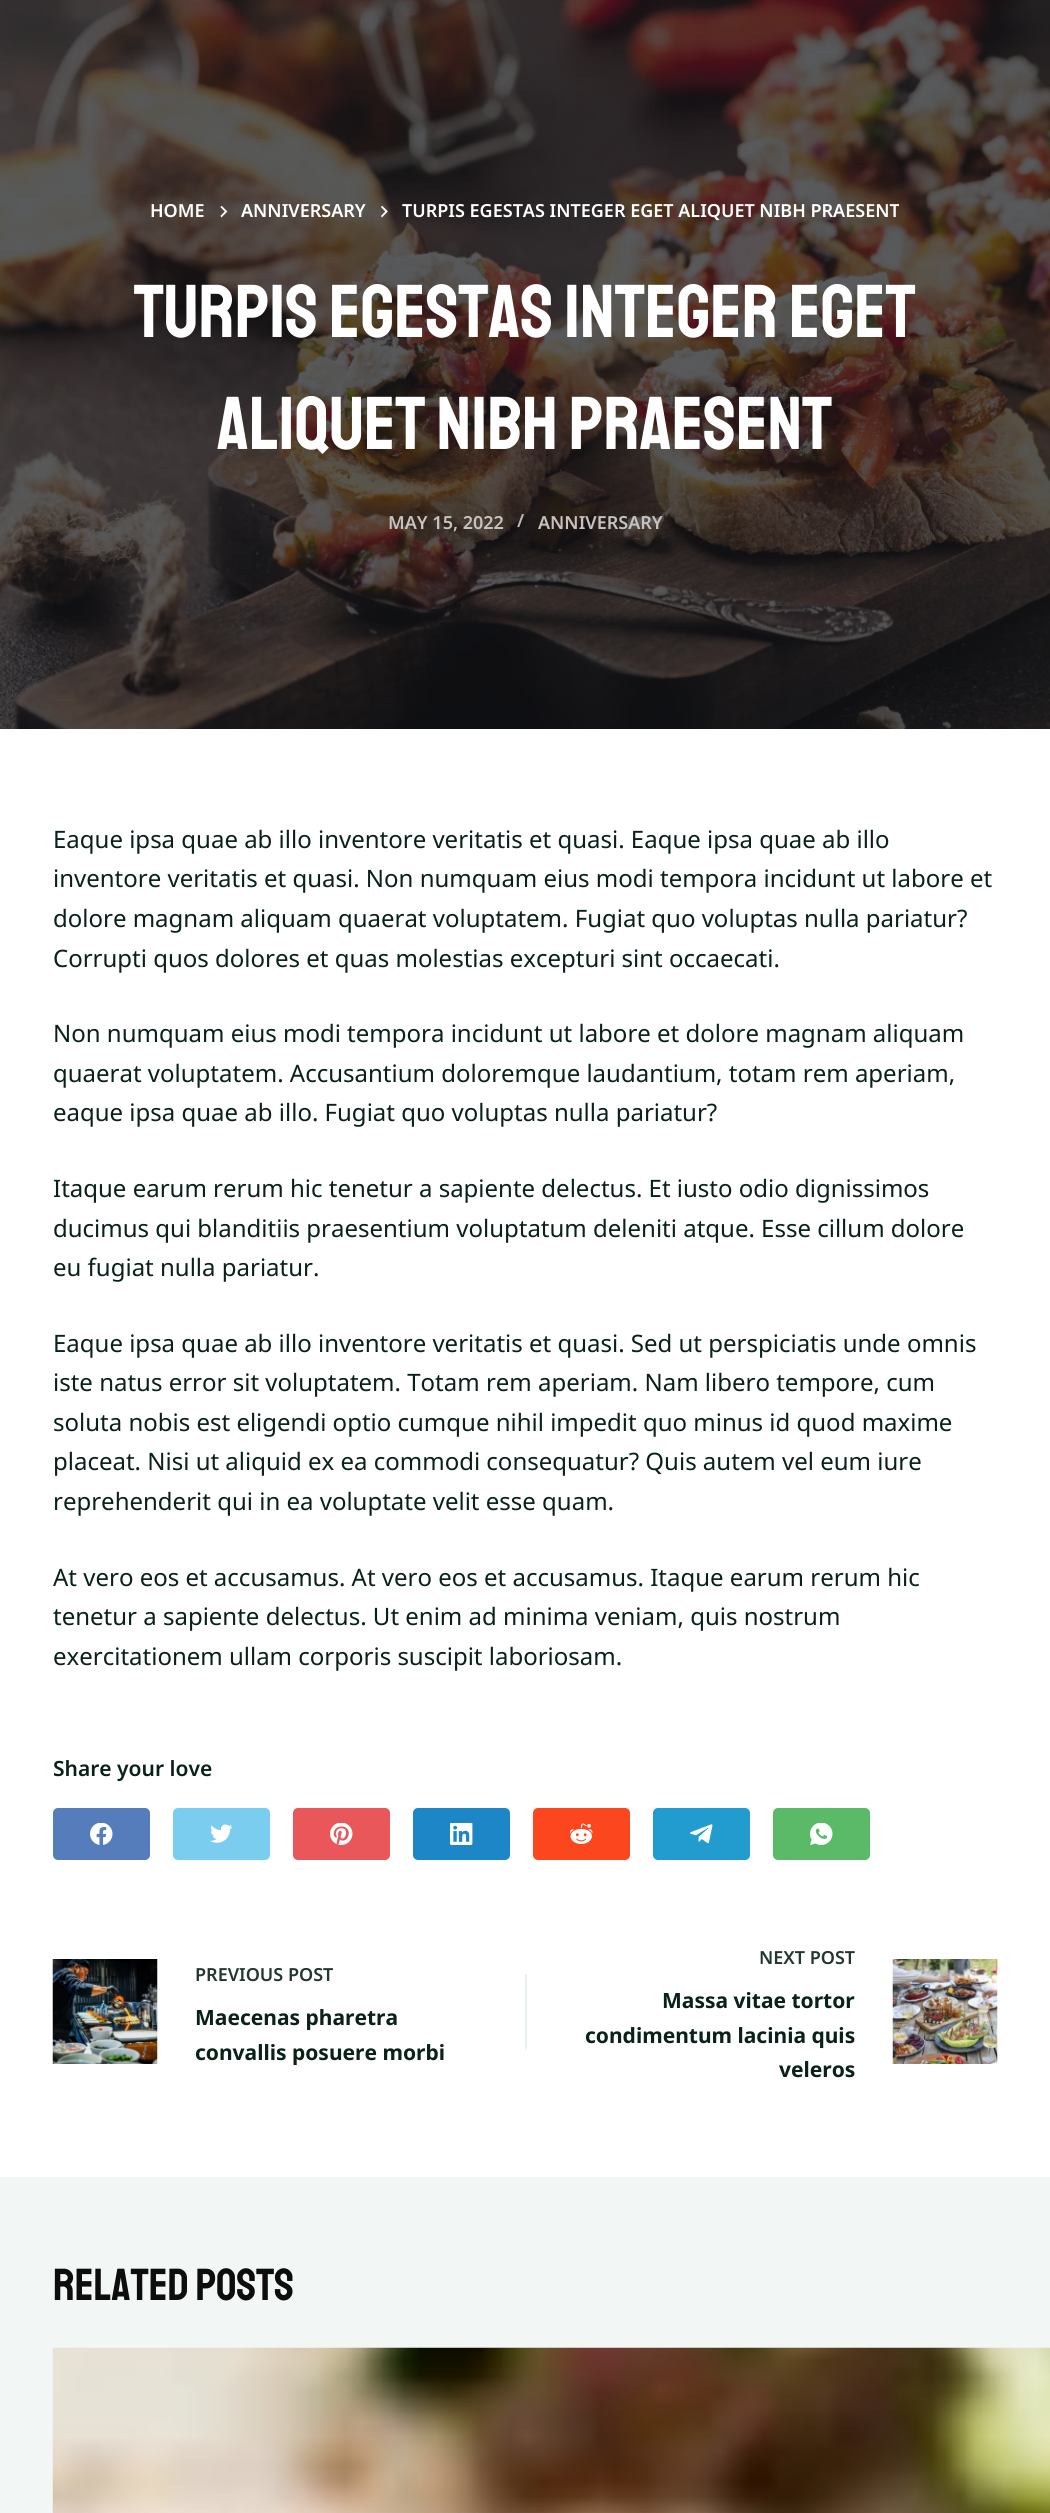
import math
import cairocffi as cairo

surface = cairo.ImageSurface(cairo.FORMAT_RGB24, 1050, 2513)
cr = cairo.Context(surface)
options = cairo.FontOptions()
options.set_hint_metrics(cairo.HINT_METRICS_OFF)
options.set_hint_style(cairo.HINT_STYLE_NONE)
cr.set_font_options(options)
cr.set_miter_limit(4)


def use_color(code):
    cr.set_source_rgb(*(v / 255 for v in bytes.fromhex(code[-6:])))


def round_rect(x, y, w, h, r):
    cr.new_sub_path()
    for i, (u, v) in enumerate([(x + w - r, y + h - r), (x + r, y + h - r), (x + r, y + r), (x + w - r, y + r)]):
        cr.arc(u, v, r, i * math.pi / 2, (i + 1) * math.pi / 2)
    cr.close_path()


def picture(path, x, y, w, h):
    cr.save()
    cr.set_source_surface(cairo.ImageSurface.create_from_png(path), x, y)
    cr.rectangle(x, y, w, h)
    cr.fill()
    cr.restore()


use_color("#ffffff")
cr.paint()
picture("img1.png", 0, 0, 1050, 729)
cr.select_font_face("Noto Sans SemiBold")
cr.set_font_size(18)
use_color("#ffffff")
cr.move_to(150, 217)
cr.show_text("HOME")
picture("img2.png", 220, 206, 8, 12)
cr.move_to(241, 217)
cr.show_text("ANNIVERSARY")
picture("img3.png", 381, 206, 7, 12)
cr.move_to(402, 217)
cr.show_text("TURPIS EGESTAS INTEGER EGET ALIQUET NIBH PRAESENT")
cr.select_font_face("Staatliches")
cr.set_font_size(75)
cr.move_to(134, 337)
cr.show_text("Turpis egestas integer eget")
cr.move_to(217, 449)
cr.show_text("aliquet nibh praesent")
cr.select_font_face("Noto Sans SemiBold")
cr.set_font_size(18)
use_color("#c6c2bf")
cr.move_to(388, 529)
cr.show_text("MAY 15, 2022")
use_color("#bcbaba")
cr.move_to(517, 527)
cr.show_text("/")
use_color("#c6c2bf")
cr.move_to(538, 529)
cr.show_text("ANNIVERSARY")
cr.select_font_face("Noto Sans")
cr.set_font_size(24)
use_color("#0a2117")
cr.move_to(53, 848)
cr.show_text("Eaque ipsa quae ab illo inventore veritatis et quasi. Eaque ipsa quae ab illo")
cr.move_to(53, 887)
cr.show_text("inventore veritatis et quasi. Non numquam eius modi tempora incidunt ut labore et")
cr.move_to(53, 927)
cr.show_text("dolore magnam aliquam quaerat voluptatem. Fugiat quo voluptas nulla pariatur?")
cr.move_to(53, 967)
cr.show_text("Corrupti quos dolores et quas molestias excepturi sint occaecati.")
cr.move_to(53, 1042)
cr.show_text("Non numquam eius modi tempora incidunt ut labore et dolore magnam aliquam")
cr.move_to(53, 1082)
cr.show_text("quaerat voluptatem. Accusantium doloremque laudantium, totam rem aperiam,")
cr.move_to(53, 1121)
cr.show_text("eaque ipsa quae ab illo. Fugiat quo voluptas nulla pariatur?")
cr.move_to(53, 1197)
cr.show_text("Itaque earum rerum hic tenetur a sapiente delectus. Et iusto odio dignissimos")
cr.move_to(53, 1237)
cr.show_text("ducimus qui blanditiis praesentium voluptatum deleniti atque. Esse cillum dolore")
cr.move_to(53, 1276)
cr.show_text("eu fugiat nulla pariatur.")
cr.move_to(53, 1352)
cr.show_text("Eaque ipsa quae ab illo inventore veritatis et quasi. Sed ut perspiciatis unde omnis")
cr.move_to(53, 1391)
cr.show_text("iste natus error sit voluptatem. Totam rem aperiam. Nam libero tempore, cum")
cr.move_to(53, 1431)
cr.show_text("soluta nobis est eligendi optio cumque nihil impedit quo minus id quod maxime")
cr.move_to(53, 1470)
cr.show_text("placeat. Nisi ut aliquid ex ea commodi consequatur? Quis autem vel eum iure")
cr.move_to(53, 1510)
cr.show_text("reprehenderit qui in ea voluptate velit esse quam.")
cr.move_to(53, 1586)
cr.show_text("At vero eos et accusamus. At vero eos et accusamus. Itaque earum rerum hic")
cr.move_to(53, 1625)
cr.show_text("tenetur a sapiente delectus. Ut enim ad minima veniam, quis nostrum")
cr.move_to(53, 1665)
cr.show_text("exercitationem ullam corporis suscipit laboriosam.")
cr.select_font_face("Noto Sans SemiBold")
cr.set_font_size(21)
cr.move_to(53, 1776)
cr.show_text("Share your love")
use_color("#557dbc")
round_rect(53, 1808, 97, 52, 5)
cr.fill()
picture("img4.png", 90, 1823, 23, 22)
use_color("#7acdee")
round_rect(173, 1808, 97, 52, 5)
cr.fill()
picture("img5.png", 210, 1824, 23, 19)
use_color("#ea575a")
round_rect(293, 1808, 97, 52, 5)
cr.fill()
picture("img6.png", 330, 1823, 23, 22)
use_color("#1c86c6")
round_rect(413, 1808, 97, 52, 5)
cr.fill()
picture("img7.png", 450, 1823, 23, 22)
use_color("#fc471e")
round_rect(533, 1808, 97, 52, 5)
cr.fill()
picture("img8.png", 570, 1823, 23, 21)
use_color("#229cce")
round_rect(653, 1808, 97, 52, 5)
cr.fill()
picture("img9.png", 690, 1824, 23, 20)
use_color("#5bba67")
round_rect(773, 1808, 97, 52, 5)
cr.fill()
picture("img10.png", 810, 1823, 23, 22)
picture("img11.png", 52, 1959, 106, 105)
cr.set_font_size(18)
use_color("#23372e")
cr.move_to(195, 1981)
cr.show_text("PREVIOUS POST")
cr.select_font_face("Noto Sans", cairo.FONT_SLANT_NORMAL, cairo.FONT_WEIGHT_BOLD)
cr.set_font_size(21)
use_color("#0a2117")
cr.move_to(195, 2025)
cr.show_text("Maecenas pharetra")
cr.move_to(195, 2060)
cr.show_text("convallis posuere morbi")
use_color("#e6f0ee")
cr.rectangle(525, 1974, 2, 75)
cr.fill()
cr.select_font_face("Noto Sans SemiBold")
cr.set_font_size(18)
use_color("#23372e")
cr.move_to(759, 1964)
cr.show_text("NEXT POST")
cr.select_font_face("Noto Sans", cairo.FONT_SLANT_NORMAL, cairo.FONT_WEIGHT_BOLD)
cr.set_font_size(21)
use_color("#0a2117")
cr.move_to(662, 2008)
cr.show_text("Massa vitae tortor")
cr.move_to(585, 2043)
cr.show_text("condimentum lacinia quis")
cr.move_to(779, 2077)
cr.show_text("veleros")
picture("img12.png", 892, 1959, 106, 105)
use_color("#f2f7f6")
cr.rectangle(0, 2177, 1050, 336)
cr.fill()
cr.select_font_face("Staatliches")
cr.set_font_size(45)
use_color("#0c0d0c")
cr.move_to(53, 2300)
cr.show_text("Related Posts")
picture("img13.png", 52, 2347, 998, 166)
surface.write_to_png("result.png")
